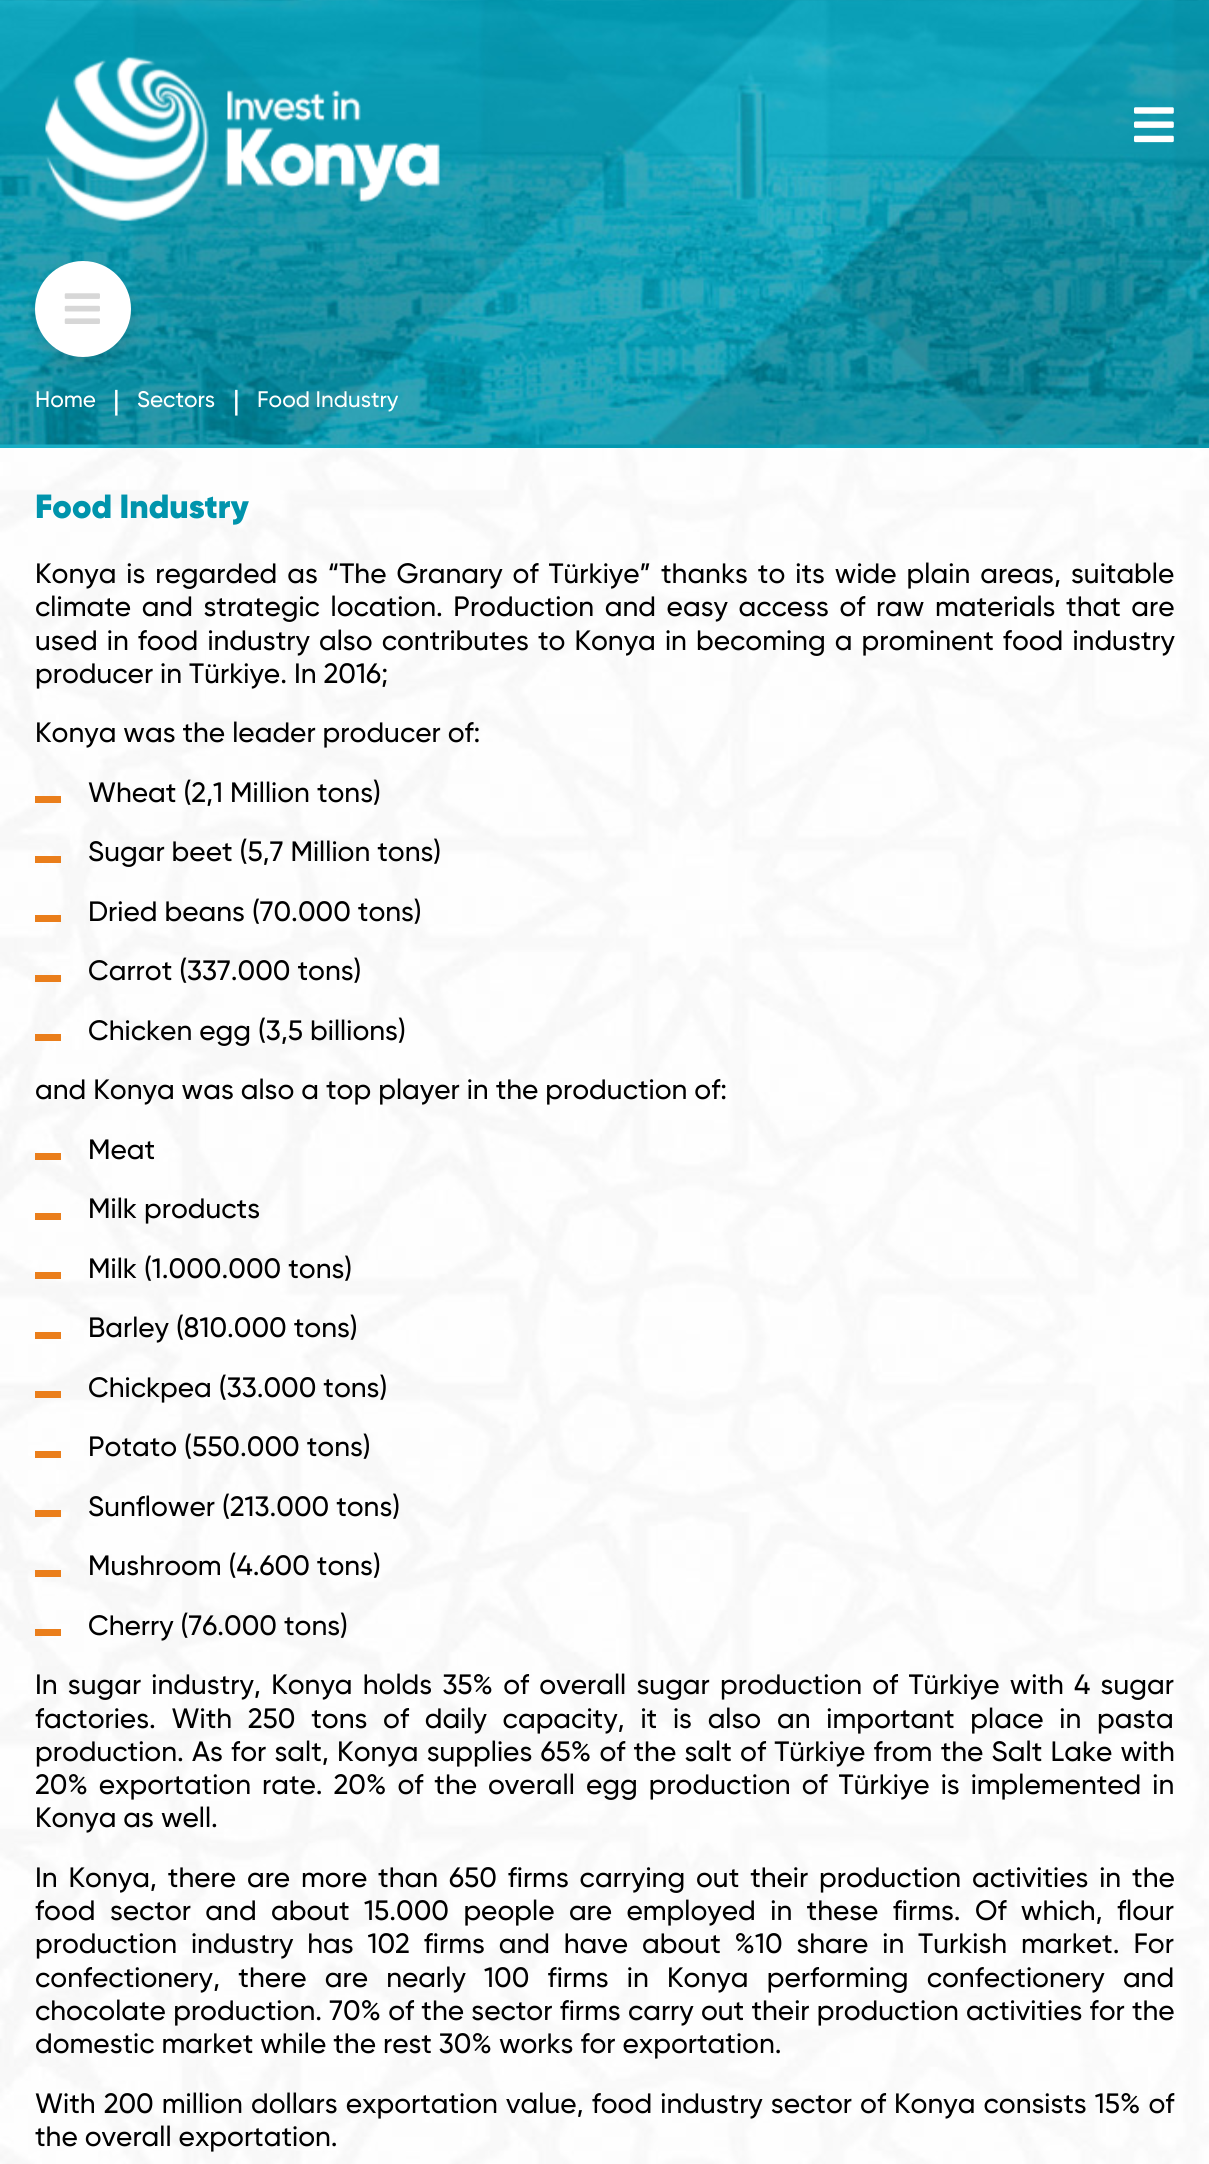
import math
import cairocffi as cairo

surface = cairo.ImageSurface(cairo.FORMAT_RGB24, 1209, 2164)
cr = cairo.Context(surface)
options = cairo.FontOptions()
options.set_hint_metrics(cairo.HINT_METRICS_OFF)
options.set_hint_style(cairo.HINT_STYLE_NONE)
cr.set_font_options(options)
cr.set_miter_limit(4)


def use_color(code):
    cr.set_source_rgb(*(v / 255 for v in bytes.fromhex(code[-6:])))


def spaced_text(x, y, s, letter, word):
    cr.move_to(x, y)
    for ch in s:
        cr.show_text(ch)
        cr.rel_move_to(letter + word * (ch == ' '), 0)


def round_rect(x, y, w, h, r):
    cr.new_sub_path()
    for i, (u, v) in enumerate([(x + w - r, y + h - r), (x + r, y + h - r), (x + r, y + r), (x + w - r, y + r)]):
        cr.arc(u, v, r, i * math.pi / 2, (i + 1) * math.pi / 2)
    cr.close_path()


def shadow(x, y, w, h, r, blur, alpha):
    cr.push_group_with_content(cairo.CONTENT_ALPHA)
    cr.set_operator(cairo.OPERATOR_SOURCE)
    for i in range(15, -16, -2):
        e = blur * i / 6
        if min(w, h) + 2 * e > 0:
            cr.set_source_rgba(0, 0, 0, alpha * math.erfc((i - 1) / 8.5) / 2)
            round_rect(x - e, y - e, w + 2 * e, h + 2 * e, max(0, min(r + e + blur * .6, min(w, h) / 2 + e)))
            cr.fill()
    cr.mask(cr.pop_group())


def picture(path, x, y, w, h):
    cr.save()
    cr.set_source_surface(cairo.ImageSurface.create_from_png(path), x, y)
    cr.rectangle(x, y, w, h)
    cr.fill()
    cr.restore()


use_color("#ffffff")
cr.paint()
picture("img1.png", 0, 448, 1209, 1716)
picture("img2.png", 0, 0, 1209, 448)
picture("img3.png", 45, 56, 395, 166)
picture("img4.png", 1134, 107, 40, 36)
use_color("#343434")
shadow(35, 270, 96, 96, 48, 9, 0.18)
use_color("#ffffff")
cr.arc(83, 309, 48, 0, 2 * math.pi)
cr.fill()
picture("img5.png", 64, 293, 36, 31)
cr.select_font_face("Gilroy Medium")
cr.set_font_size(22.5)
cr.move_to(35, 407)
cr.show_text("Home")
cr.set_font_size(28)
cr.move_to(113, 410)
cr.show_text("|")
cr.set_font_size(22.5)
cr.move_to(137, 407)
cr.show_text("Sectors")
cr.set_font_size(28)
cr.move_to(233, 410)
cr.show_text("|")
cr.set_font_size(22.5)
cr.move_to(257, 407)
cr.show_text("Food Industry")
cr.select_font_face("Gilroy Black")
cr.set_font_size(33.5)
use_color("#0094ac")
cr.move_to(35, 518)
cr.show_text("Food Industry")
cr.select_font_face("Gilroy Medium")
cr.set_font_size(28)
use_color("#000000")
spaced_text(35, 583, "Konya is regarded as “The Granary of Türkiye” thanks to its wide plain areas, suitable", 0, 3)
spaced_text(35, 616, "climate and strategic location. Production and easy access of raw materials that are", 0, 3.6)
spaced_text(35, 650, "used in food industry also contributes to Konya in becoming a prominent food industry", 0, 2.1)
cr.move_to(35, 683)
cr.show_text("producer in Türkiye. In 2016;")
cr.move_to(35, 742)
cr.show_text("Konya was the leader producer of:")
use_color("#ea7e1b")
cr.rectangle(35, 796, 26, 7)
cr.fill()
use_color("#000000")
cr.move_to(88, 802)
cr.show_text("Wheat (2,1 Million tons)")
use_color("#ea7e1b")
cr.rectangle(35, 856, 26, 7)
cr.fill()
use_color("#000000")
cr.move_to(88, 861)
cr.show_text("Sugar beet (5,7 Million tons)")
use_color("#ea7e1b")
cr.rectangle(35, 915, 26, 7)
cr.fill()
use_color("#000000")
cr.move_to(88, 921)
cr.show_text("Dried beans (70.000 tons)")
use_color("#ea7e1b")
cr.rectangle(35, 975, 26, 7)
cr.fill()
use_color("#000000")
cr.move_to(88, 980)
cr.show_text("Carrot (337.000 tons)")
use_color("#ea7e1b")
cr.rectangle(35, 1034, 26, 7)
cr.fill()
use_color("#000000")
cr.move_to(88, 1040)
cr.show_text("Chicken egg (3,5 billions)")
cr.move_to(35, 1099)
cr.show_text("and Konya was also a top player in the production of:")
use_color("#ea7e1b")
cr.rectangle(35, 1153, 26, 7)
cr.fill()
use_color("#000000")
cr.move_to(88, 1159)
cr.show_text("Meat")
use_color("#ea7e1b")
cr.rectangle(35, 1213, 26, 7)
cr.fill()
use_color("#000000")
cr.move_to(88, 1218)
cr.show_text("Milk products")
use_color("#ea7e1b")
cr.rectangle(35, 1272, 26, 7)
cr.fill()
use_color("#000000")
cr.move_to(88, 1278)
cr.show_text("Milk (1.000.000 tons)")
use_color("#ea7e1b")
cr.rectangle(35, 1332, 26, 7)
cr.fill()
use_color("#000000")
cr.move_to(88, 1337)
cr.show_text("Barley (810.000 tons)")
use_color("#ea7e1b")
cr.rectangle(35, 1391, 26, 7)
cr.fill()
use_color("#000000")
cr.move_to(88, 1397)
cr.show_text("Chickpea (33.000 tons)")
use_color("#ea7e1b")
cr.rectangle(35, 1451, 26, 7)
cr.fill()
use_color("#000000")
cr.move_to(88, 1456)
cr.show_text("Potato (550.000 tons)")
use_color("#ea7e1b")
cr.rectangle(35, 1510, 26, 7)
cr.fill()
use_color("#000000")
cr.move_to(88, 1516)
cr.show_text("Sunflower (213.000 tons)")
use_color("#ea7e1b")
cr.rectangle(35, 1570, 26, 7)
cr.fill()
use_color("#000000")
cr.move_to(88, 1575)
cr.show_text("Mushroom (4.600 tons)")
use_color("#ea7e1b")
cr.rectangle(35, 1629, 26, 7)
cr.fill()
use_color("#000000")
cr.move_to(88, 1635)
cr.show_text("Cherry (76.000 tons)")
spaced_text(35, 1694, "In sugar industry, Konya holds 35% of overall sugar production of Türkiye with 4 sugar", 0, 3.25)
spaced_text(35, 1728, "factories. With 250 tons of daily capacity, it is also an important place in pasta", 0, 8.75)
spaced_text(35, 1761, "production. As for salt, Konya supplies 65% of the salt of Türkiye from the Salt Lake with", 0, 1.25)
spaced_text(35, 1794, "20% exportation rate. 20% of the overall egg production of Türkiye is implemented in", 0, 4)
cr.move_to(35, 1827)
cr.show_text("Konya as well.")
spaced_text(35, 1887, "In Konya, there are more than 650 firms carrying out their production activities in the", 0, 3.9)
spaced_text(35, 1920, "food sector and about 15.000 people are employed in these firms. Of which, flour", 0, 7.4)
spaced_text(35, 1953, "production industry has 102 firms and have about %10 share in Turkish market. For", 0, 6.9)
spaced_text(35, 1987, "confectionery, there are nearly 100 firms in Konya performing confectionery and", 0, 11.25)
spaced_text(35, 2020, "chocolate production. 70% of the sector firms carry out their production activities for the", 0, 0.25)
cr.move_to(35, 2053)
cr.show_text("domestic market while the rest 30% works for exportation.")
spaced_text(35, 2113, "With 200 million dollars exportation value, food industry sector of Konya consists 15% of", 0, 1.1)
cr.move_to(35, 2146)
cr.show_text("the overall exportation.")
surface.write_to_png("result.png")
